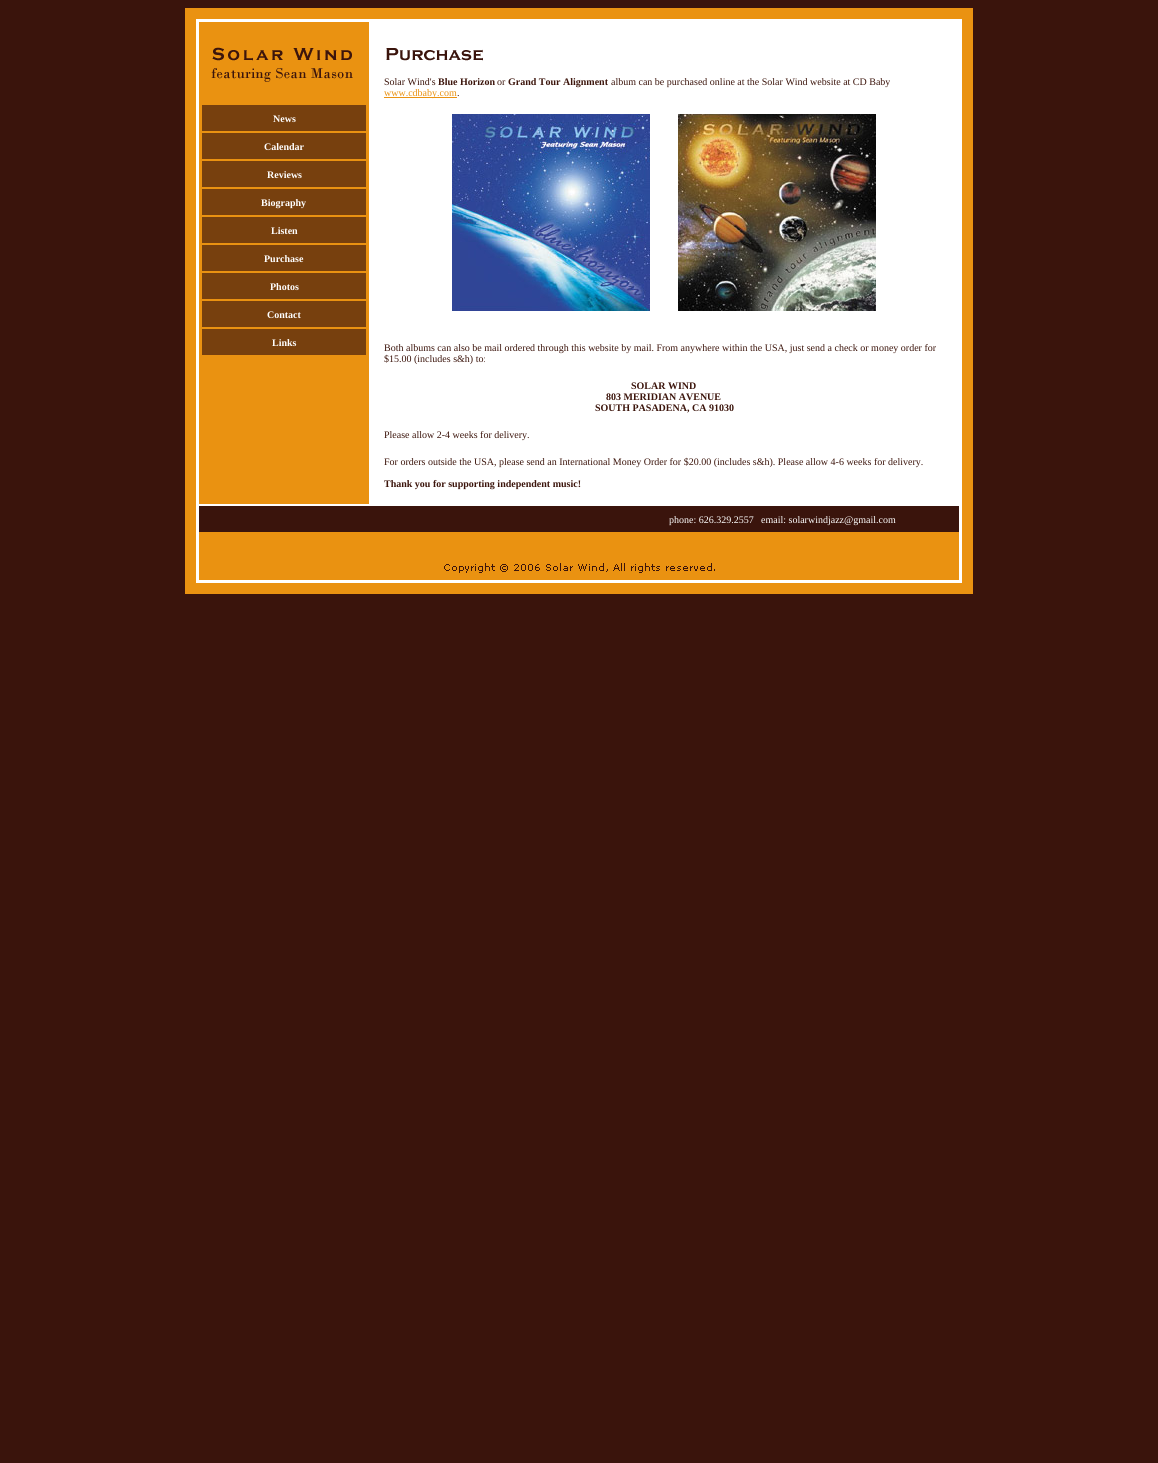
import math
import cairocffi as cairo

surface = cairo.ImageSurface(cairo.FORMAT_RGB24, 1158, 1463)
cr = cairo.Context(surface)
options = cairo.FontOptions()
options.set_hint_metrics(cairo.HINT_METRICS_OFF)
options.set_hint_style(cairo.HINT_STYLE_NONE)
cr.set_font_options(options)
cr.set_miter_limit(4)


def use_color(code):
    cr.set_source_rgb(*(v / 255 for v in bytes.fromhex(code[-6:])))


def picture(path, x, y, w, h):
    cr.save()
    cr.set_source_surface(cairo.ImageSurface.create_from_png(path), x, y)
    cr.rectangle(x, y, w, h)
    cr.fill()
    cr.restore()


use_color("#3a140c")
cr.paint()
cr.rectangle(190, 13, 778, 576)
use_color("#ea9211")
cr.set_line_width(10)
cr.stroke()
cr.rectangle(195.5, 18.5, 767, 565)
cr.set_line_width(1)
cr.stroke()
cr.rectangle(197, 20, 764, 562)
use_color("#ffffff")
cr.set_line_width(2)
cr.stroke()
cr.rectangle(198.5, 21.5, 761, 559)
cr.set_line_width(1)
cr.stroke()
use_color("#ea9211")
cr.rectangle(199, 22, 170, 482)
cr.fill()
picture("img1.png", 211, 47, 142, 35)
use_color("#77400e")
cr.rectangle(202, 105, 164, 250)
cr.fill()
cr.rectangle(201.5, 104.5, 165, 27)
use_color("#ea9211")
cr.stroke()
cr.select_font_face("Liberation Serif", cairo.FONT_SLANT_NORMAL, cairo.FONT_WEIGHT_BOLD)
cr.set_font_size(10)
use_color("#ffffff")
cr.move_to(273, 122)
cr.show_text("News")
cr.rectangle(201.5, 132.5, 165, 27)
use_color("#ea9211")
cr.stroke()
use_color("#ffffff")
cr.move_to(264, 150)
cr.show_text("Calendar")
cr.rectangle(201.5, 160.5, 165, 27)
use_color("#ea9211")
cr.stroke()
use_color("#ffffff")
cr.move_to(267, 178)
cr.show_text("Reviews")
cr.rectangle(201.5, 188.5, 165, 27)
use_color("#ea9211")
cr.stroke()
use_color("#ffffff")
cr.move_to(261, 206)
cr.show_text("Biography")
cr.rectangle(201.5, 216.5, 165, 27)
use_color("#ea9211")
cr.stroke()
use_color("#ffffff")
cr.move_to(271, 234)
cr.show_text("Listen")
cr.rectangle(201.5, 244.5, 165, 27)
use_color("#ea9211")
cr.stroke()
use_color("#ffffff")
cr.move_to(264, 262)
cr.show_text("Purchase")
cr.rectangle(201.5, 272.5, 165, 27)
use_color("#ea9211")
cr.stroke()
use_color("#ffffff")
cr.move_to(270, 290)
cr.show_text("Photos")
cr.rectangle(201.5, 300.5, 165, 27)
use_color("#ea9211")
cr.stroke()
use_color("#ffffff")
cr.move_to(267, 318)
cr.show_text("Contact")
cr.rectangle(201.5, 328.5, 165, 27)
use_color("#ea9211")
cr.stroke()
use_color("#ffffff")
cr.move_to(272, 346)
cr.show_text("Links")
cr.rectangle(369, 22, 590, 482)
cr.fill()
picture("img2.png", 386, 48, 97, 13)
cr.select_font_face("Liberation Serif")
use_color("#3c150c")
cr.move_to(384, 85)
cr.show_text("Solar Wind's")
cr.select_font_face("Liberation Serif", cairo.FONT_SLANT_NORMAL, cairo.FONT_WEIGHT_BOLD)
cr.move_to(438, 85)
cr.show_text("Blue Horizon")
cr.select_font_face("Liberation Serif")
cr.move_to(497, 85)
cr.show_text("or")
cr.select_font_face("Liberation Serif", cairo.FONT_SLANT_NORMAL, cairo.FONT_WEIGHT_BOLD)
cr.move_to(508, 85)
cr.show_text("Grand Tour Alignment")
cr.select_font_face("Liberation Serif")
cr.move_to(611, 85)
cr.show_text("album can be purchased online at the Solar Wind website at CD Baby")
use_color("#ea9211")
cr.rectangle(384, 97, 73, 1)
cr.fill()
cr.move_to(384, 96)
cr.show_text("www.cdbaby.com")
use_color("#3c150c")
cr.move_to(457, 96)
cr.show_text(".")
picture("img3.png", 452, 114, 198, 197)
picture("img4.png", 678, 114, 198, 197)
cr.move_to(384, 351)
cr.show_text("Both albums can also be mail ordered through this website by mail. From anywhere within the USA, just send a check or money order for")
cr.move_to(384, 362)
cr.show_text("$15.00 (includes s&h) to:")
cr.select_font_face("Liberation Serif", cairo.FONT_SLANT_NORMAL, cairo.FONT_WEIGHT_BOLD)
cr.move_to(631, 389)
cr.show_text("SOLAR WIND")
cr.move_to(606, 400)
cr.show_text("803 MERIDIAN AVENUE")
cr.move_to(595, 411)
cr.show_text("SOUTH PASADENA, CA 91030")
cr.select_font_face("Liberation Serif")
cr.move_to(384, 438)
cr.show_text("Please allow 2-4 weeks for delivery.")
cr.move_to(384, 465)
cr.show_text("For orders outside the USA, please send an International Money Order for $20.00 (includes s&h). Please allow 4-6 weeks for delivery.")
cr.select_font_face("Liberation Serif", cairo.FONT_SLANT_NORMAL, cairo.FONT_WEIGHT_BOLD)
cr.move_to(384, 487)
cr.show_text("Thank you for supporting independent music!")
use_color("#ffffff")
cr.rectangle(199, 504, 760, 2)
cr.fill()
cr.select_font_face("Liberation Serif")
cr.move_to(669, 523)
cr.show_text("phone: 626.329.2557")
cr.move_to(761, 523)
cr.show_text("email: solarwindjazz@gmail.com")
picture("img5.png", 199, 532, 760, 48)
surface.write_to_png("result.png")
